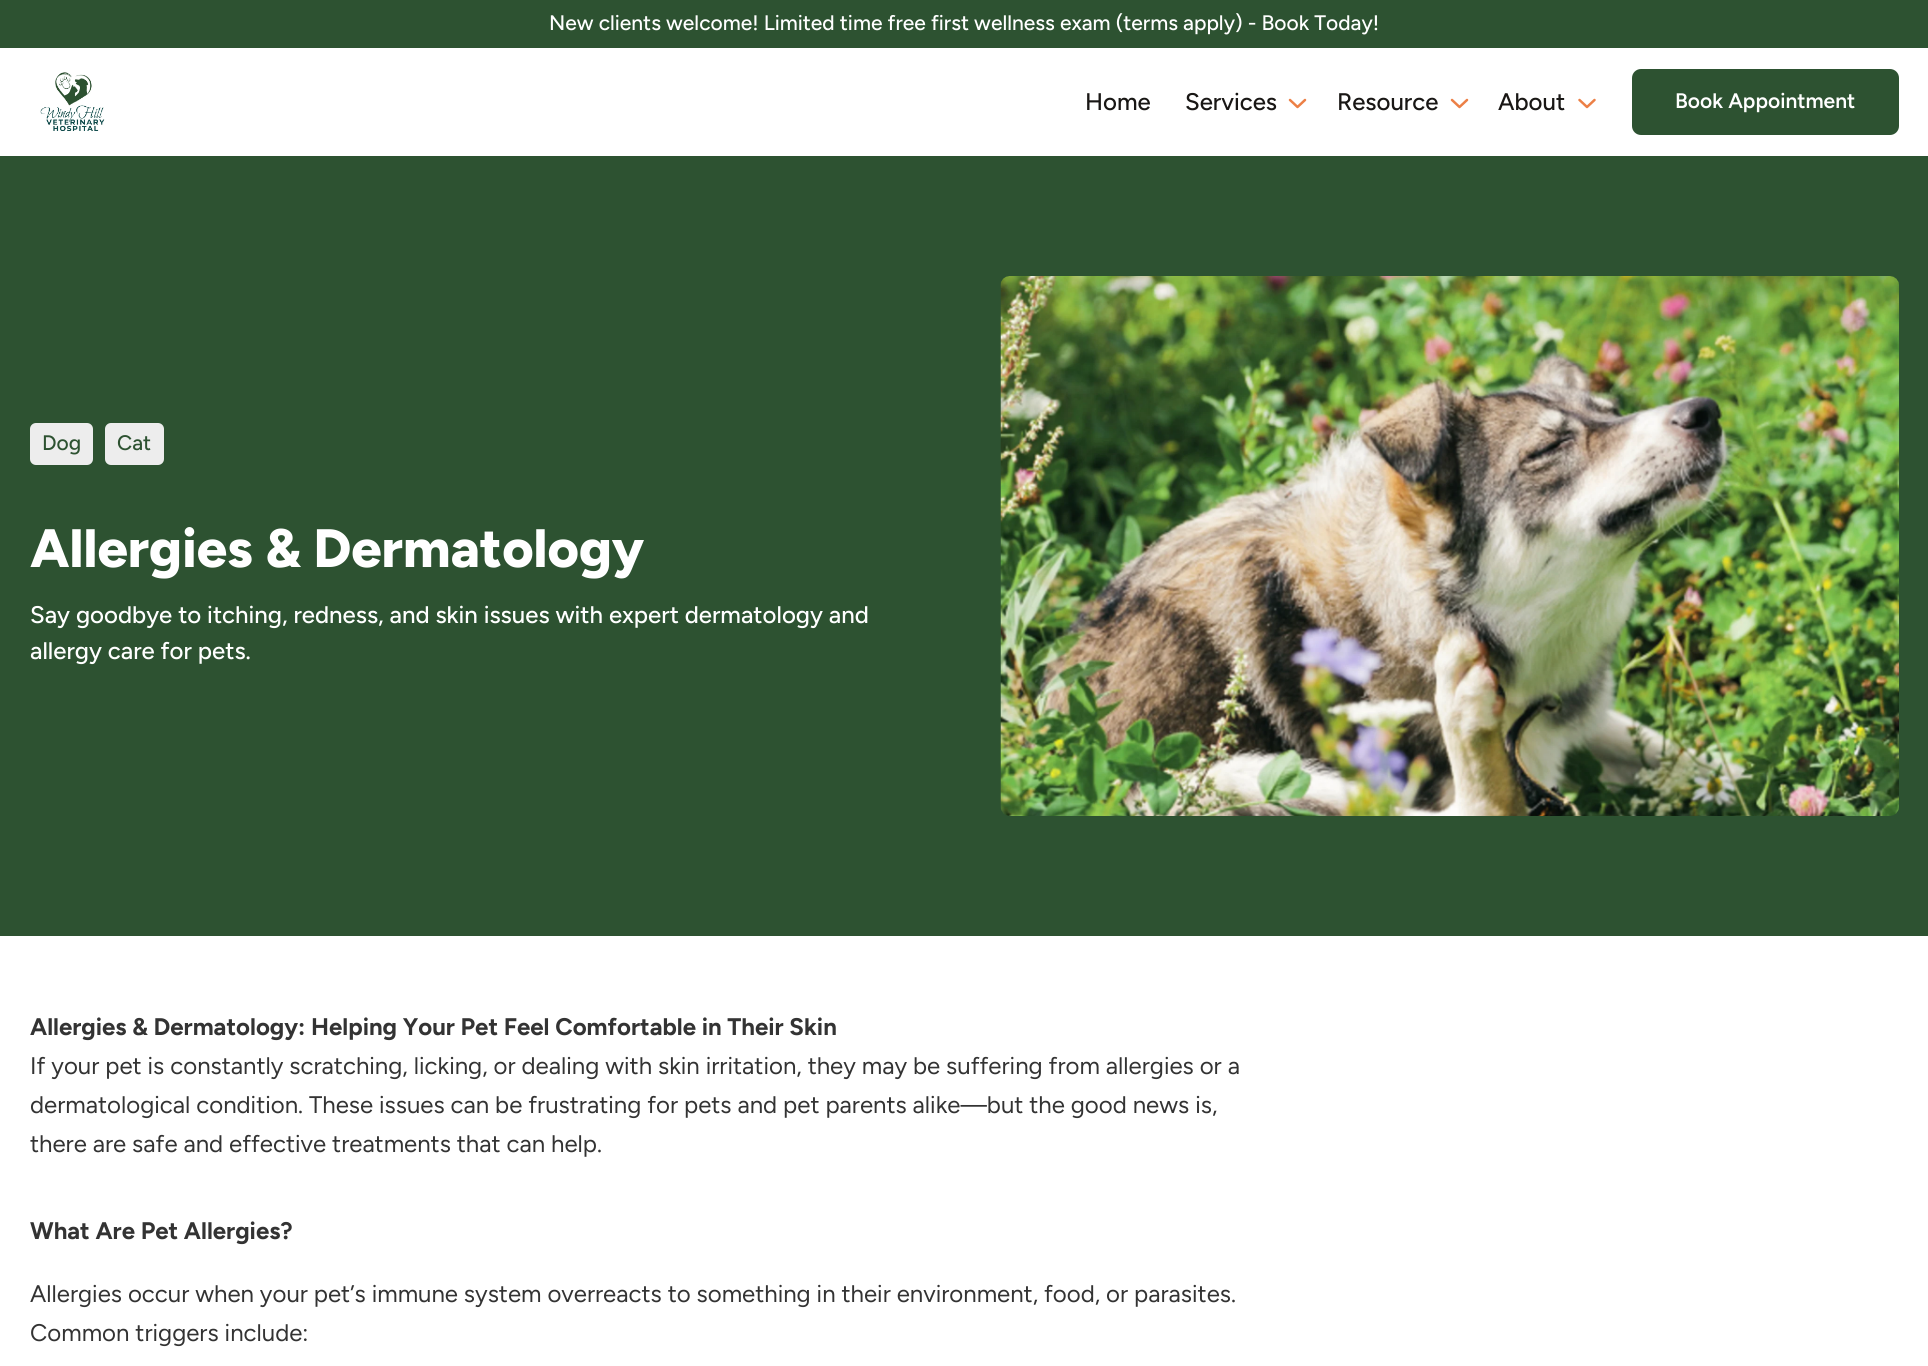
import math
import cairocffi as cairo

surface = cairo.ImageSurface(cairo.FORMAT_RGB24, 1928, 1366)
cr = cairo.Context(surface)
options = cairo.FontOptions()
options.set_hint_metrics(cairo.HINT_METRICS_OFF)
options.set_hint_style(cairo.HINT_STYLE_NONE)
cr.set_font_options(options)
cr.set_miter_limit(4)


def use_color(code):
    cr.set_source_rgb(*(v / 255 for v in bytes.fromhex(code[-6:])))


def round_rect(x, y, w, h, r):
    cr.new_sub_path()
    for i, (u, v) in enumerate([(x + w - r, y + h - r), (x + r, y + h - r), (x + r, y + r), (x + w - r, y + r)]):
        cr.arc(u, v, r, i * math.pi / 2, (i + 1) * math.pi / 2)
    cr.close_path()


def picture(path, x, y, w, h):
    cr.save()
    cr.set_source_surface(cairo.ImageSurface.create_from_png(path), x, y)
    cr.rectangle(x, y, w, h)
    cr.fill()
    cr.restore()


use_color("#ffffff")
cr.paint()
use_color("#2d5231")
cr.rectangle(0, 0, 1928, 48)
cr.fill()
cr.select_font_face("Figtree Medium")
cr.set_font_size(21)
use_color("#ffffff")
cr.move_to(549, 30)
cr.show_text("New clients welcome! Limited time free first wellness exam (terms apply) - Book Today!")
picture("img1.png", 40, 72, 65, 59)
cr.set_font_size(24)
use_color("#191715")
cr.move_to(1085, 110)
cr.show_text("Home")
cr.move_to(1185, 110)
cr.show_text("Services")
cr.new_path()
cr.move_to(1290, 100)
cr.line_to(1297.5, 107)
cr.line_to(1305, 100)
use_color("#ec8046")
cr.set_line_width(2.5)
cr.set_line_cap(cairo.LINE_CAP_ROUND)
cr.set_line_join(cairo.LINE_JOIN_ROUND)
cr.stroke()
use_color("#191715")
cr.move_to(1337, 110)
cr.show_text("Resource")
cr.new_path()
cr.move_to(1452, 100)
cr.line_to(1459.5, 107)
cr.line_to(1467, 100)
use_color("#ec8046")
cr.stroke()
use_color("#191715")
cr.move_to(1498, 110)
cr.show_text("About")
cr.new_path()
cr.move_to(1579.5, 100)
cr.line_to(1587, 107)
cr.line_to(1594.5, 100)
use_color("#ec8046")
cr.stroke()
use_color("#2d5231")
round_rect(1633, 70, 265, 64, 8)
cr.fill_preserve()
cr.set_line_width(2)
cr.set_line_cap(cairo.LINE_CAP_BUTT)
cr.set_line_join(cairo.LINE_JOIN_MITER)
cr.stroke()
cr.select_font_face("Figtree SemiBold")
cr.set_font_size(21)
use_color("#ffffff")
cr.move_to(1675, 108)
cr.show_text("Book Appointment")
use_color("#2d5231")
cr.rectangle(0, 156, 1928, 780)
cr.fill()
use_color("#ededed")
round_rect(30, 423, 63, 42, 6)
cr.fill()
cr.select_font_face("Figtree Medium")
use_color("#2d5231")
cr.move_to(42, 450)
cr.show_text("Dog")
use_color("#ededed")
round_rect(105, 423, 59, 42, 6)
cr.fill()
use_color("#2d5231")
cr.move_to(117, 450)
cr.show_text("Cat")
cr.select_font_face("Figtree ExtraBold")
cr.set_font_size(54)
use_color("#ffffff")
cr.move_to(30, 567)
cr.show_text("Allergies & Dermatology")
cr.select_font_face("Figtree Medium")
cr.set_font_size(24)
cr.move_to(30, 623)
cr.show_text("Say goodbye to itching, redness, and skin issues with expert dermatology and")
cr.move_to(30, 659)
cr.show_text("allergy care for pets.")
picture("img2.png", 1000, 276, 899, 540)
cr.select_font_face("Figtree", cairo.FONT_SLANT_NORMAL, cairo.FONT_WEIGHT_BOLD)
use_color("#333333")
cr.move_to(30, 1035)
cr.show_text("Allergies & Dermatology: Helping Your Pet Feel Comfortable in Their Skin")
cr.select_font_face("Figtree")
cr.move_to(30, 1074)
cr.show_text("If your pet is constantly scratching, licking, or dealing with skin irritation, they may be suffering from allergies or a")
cr.move_to(30, 1113)
cr.show_text("dermatological condition. These issues can be frustrating for pets and pet parents alike—but the good news is,")
cr.move_to(30, 1152)
cr.show_text("there are safe and effective treatments that can help.")
cr.select_font_face("Figtree", cairo.FONT_SLANT_NORMAL, cairo.FONT_WEIGHT_BOLD)
cr.move_to(30, 1239)
cr.show_text("What Are Pet Allergies?")
cr.select_font_face("Figtree")
cr.move_to(30, 1302)
cr.show_text("Allergies occur when your pet’s immune system overreacts to something in their environment, food, or parasites.")
cr.move_to(30, 1341)
cr.show_text("Common triggers include:")
surface.write_to_png("result.png")
